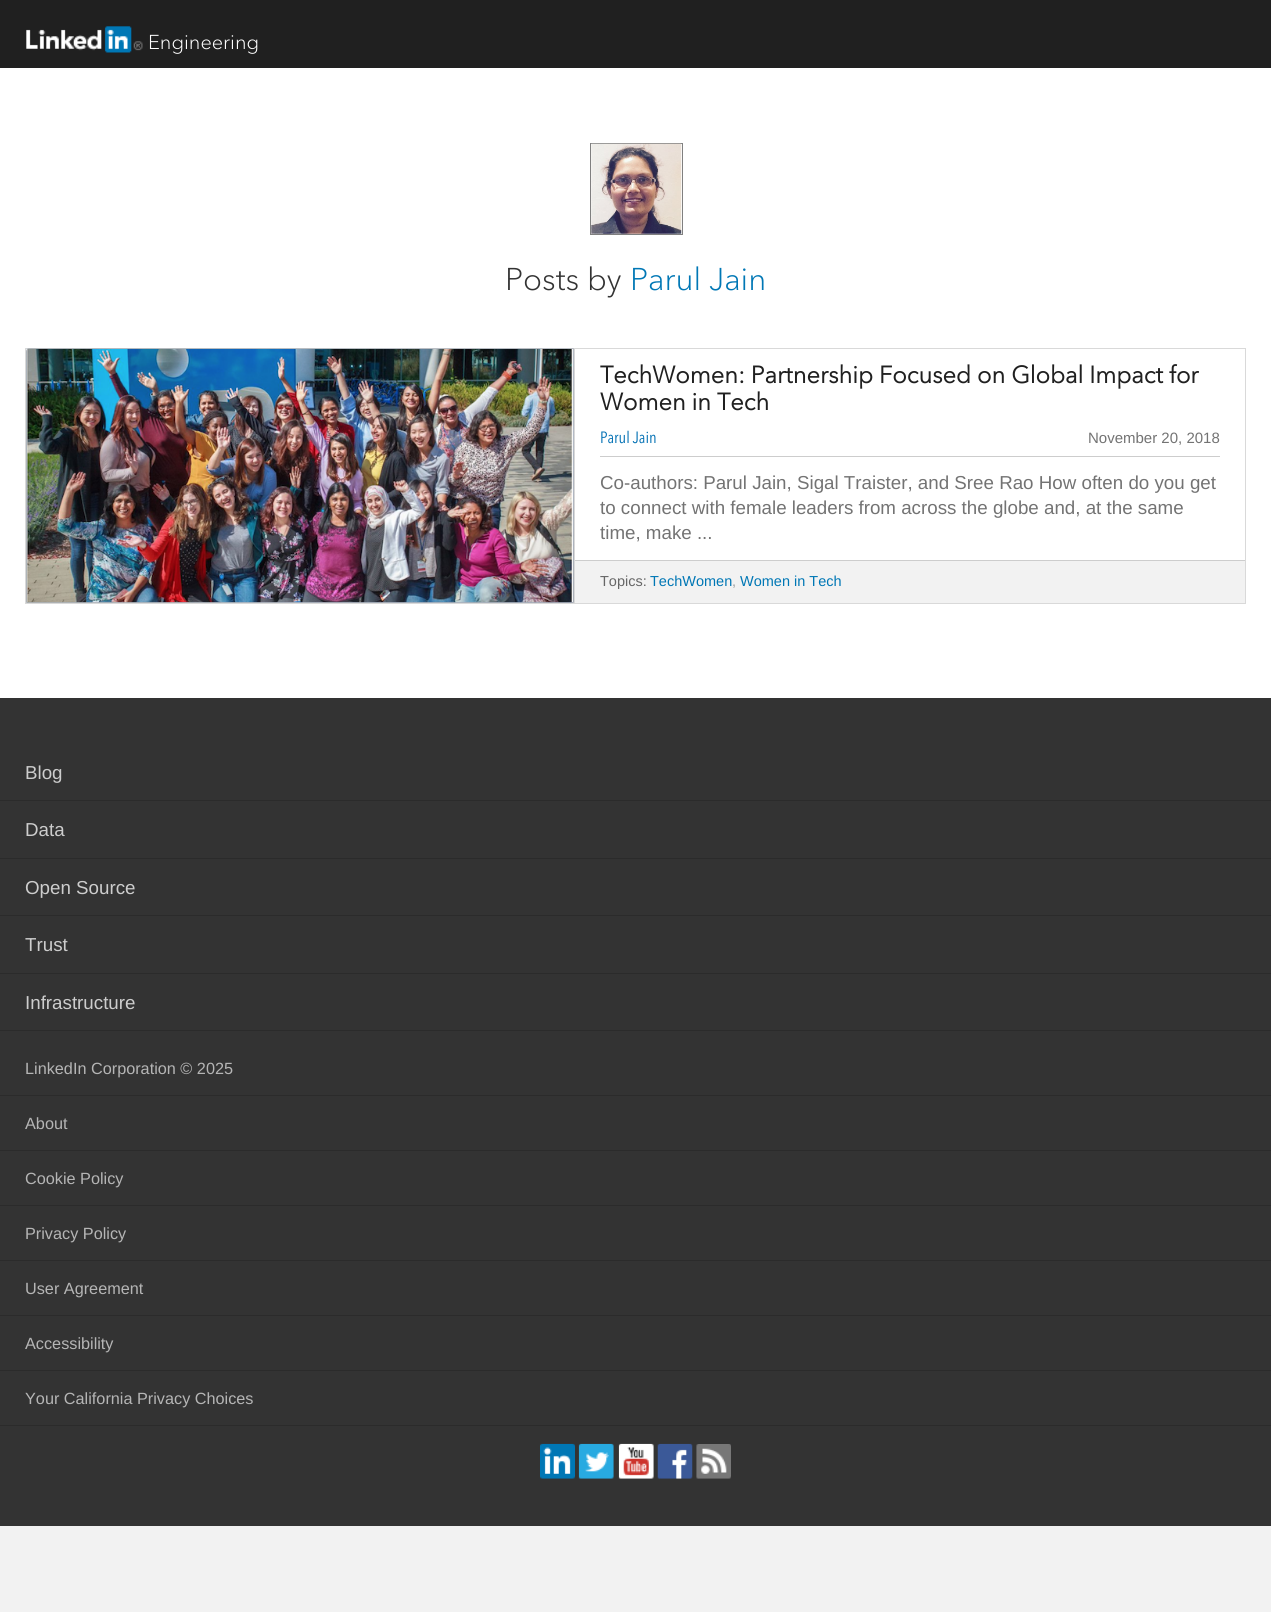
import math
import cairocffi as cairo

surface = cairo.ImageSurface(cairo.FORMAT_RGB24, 1271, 1612)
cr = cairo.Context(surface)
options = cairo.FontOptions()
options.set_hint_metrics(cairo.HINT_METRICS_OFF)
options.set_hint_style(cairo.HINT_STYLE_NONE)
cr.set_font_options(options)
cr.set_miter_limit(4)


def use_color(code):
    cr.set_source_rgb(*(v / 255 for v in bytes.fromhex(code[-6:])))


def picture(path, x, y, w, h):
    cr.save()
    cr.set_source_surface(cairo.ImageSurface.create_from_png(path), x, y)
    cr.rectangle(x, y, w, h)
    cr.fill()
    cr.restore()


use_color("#f2f2f2")
cr.paint()
use_color("#202020")
cr.rectangle(0, 0, 1271, 68)
cr.fill()
picture("img1.png", 26, 26, 117, 27)
cr.select_font_face("avenir Light")
cr.set_font_size(20)
use_color("#ffffff")
cr.move_to(148, 49)
cr.show_text("Engineering")
cr.rectangle(0, 68, 1271, 630)
cr.fill()
cr.rectangle(590.5, 143.5, 92, 91)
use_color("#808080")
cr.set_line_width(1)
cr.stroke()
picture("img2.png", 591, 143, 91, 91)
cr.set_font_size(31.25)
use_color("#333333")
cr.move_to(505, 290)
cr.show_text("Posts by")
use_color("#0077b5")
cr.move_to(630, 290)
cr.show_text("Parul Jain")
cr.rectangle(25.5, 348.5, 1220, 255)
use_color("#d9d9d9")
cr.stroke()
picture("img3.png", 26, 348, 548, 255)
picture("img4.png", 26, 349, 548, 254)
cr.rectangle(574, 349, 1, 254)
cr.fill()
cr.select_font_face("avenir", cairo.FONT_SLANT_NORMAL, cairo.FONT_WEIGHT_BOLD)
cr.set_font_size(23.75)
use_color("#202020")
cr.move_to(600, 383)
cr.show_text("TechWomen: Partnership Focused on Global Impact for")
cr.move_to(600, 410)
cr.show_text("Women in Tech")
use_color("#cdcdcd")
cr.rectangle(600, 456, 620, 1)
cr.fill()
cr.select_font_face("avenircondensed")
cr.set_font_size(16.25)
use_color("#006fb3")
cr.move_to(600, 443)
cr.show_text("Parul Jain")
cr.select_font_face("Liberation Sans")
cr.set_font_size(15)
use_color("#737373")
cr.move_to(1088, 443)
cr.show_text("November 20, 2018")
cr.set_font_size(18.75)
cr.move_to(600, 489)
cr.show_text("Co-authors: Parul Jain, Sigal Traister, and Sree Rao How often do you get")
cr.move_to(600, 514)
cr.show_text("to connect with female leaders from across the globe and, at the same")
cr.move_to(600, 539)
cr.show_text("time, make ...")
use_color("#f2f2f2")
cr.rectangle(575, 561, 670, 42)
cr.fill()
use_color("#cdcdcd")
cr.rectangle(575, 560, 670, 1)
cr.fill()
cr.set_font_size(14.5)
use_color("#666666")
cr.move_to(600, 586)
cr.show_text("Topics:")
use_color("#0077b5")
cr.move_to(650, 586)
cr.show_text("TechWomen")
use_color("#9a9b9d")
cr.move_to(732, 586)
cr.show_text(",")
use_color("#0077b5")
cr.move_to(740, 586)
cr.show_text("Women in Tech")
use_color("#333333")
cr.rectangle(0, 698, 1271, 828)
cr.fill()
use_color("#2b2b2b")
cr.rectangle(0, 800, 1271, 1)
cr.fill()
cr.set_font_size(18.75)
use_color("#cdcdcd")
cr.move_to(25, 779)
cr.show_text("Blog")
use_color("#2b2b2b")
cr.rectangle(0, 858, 1271, 1)
cr.fill()
use_color("#cdcdcd")
cr.move_to(25, 836)
cr.show_text("Data")
use_color("#2b2b2b")
cr.rectangle(0, 915, 1271, 1)
cr.fill()
use_color("#cdcdcd")
cr.move_to(25, 894)
cr.show_text("Open Source")
use_color("#2b2b2b")
cr.rectangle(0, 973, 1271, 1)
cr.fill()
use_color("#cdcdcd")
cr.move_to(25, 951)
cr.show_text("Trust")
use_color("#2b2b2b")
cr.rectangle(0, 1030, 1271, 1)
cr.fill()
use_color("#cdcdcd")
cr.move_to(25, 1009)
cr.show_text("Infrastructure")
use_color("#2b2b2b")
cr.rectangle(0, 1095, 1271, 1)
cr.fill()
cr.set_font_size(16.25)
use_color("#b5b5b5")
cr.move_to(25, 1074)
cr.show_text("LinkedIn Corporation © 2025")
use_color("#2b2b2b")
cr.rectangle(0, 1150, 1271, 1)
cr.fill()
use_color("#b5b5b5")
cr.move_to(25, 1129)
cr.show_text("About")
use_color("#2b2b2b")
cr.rectangle(0, 1205, 1271, 1)
cr.fill()
use_color("#b5b5b5")
cr.move_to(25, 1184)
cr.show_text("Cookie Policy")
use_color("#2b2b2b")
cr.rectangle(0, 1260, 1271, 1)
cr.fill()
use_color("#b5b5b5")
cr.move_to(25, 1239)
cr.show_text("Privacy Policy")
use_color("#2b2b2b")
cr.rectangle(0, 1315, 1271, 1)
cr.fill()
use_color("#b5b5b5")
cr.move_to(25, 1294)
cr.show_text("User Agreement")
use_color("#2b2b2b")
cr.rectangle(0, 1370, 1271, 1)
cr.fill()
use_color("#b5b5b5")
cr.move_to(25, 1349)
cr.show_text("Accessibility")
use_color("#2b2b2b")
cr.rectangle(0, 1425, 1271, 1)
cr.fill()
use_color("#b5b5b5")
cr.move_to(25, 1404)
cr.show_text("Your California Privacy Choices")
picture("img5.png", 540, 1443, 35, 36)
picture("img6.png", 578, 1443, 36, 36)
picture("img7.png", 618, 1443, 36, 36)
picture("img8.png", 657, 1443, 36, 36)
picture("img9.png", 696, 1444, 35, 35)
surface.write_to_png("result.png")
